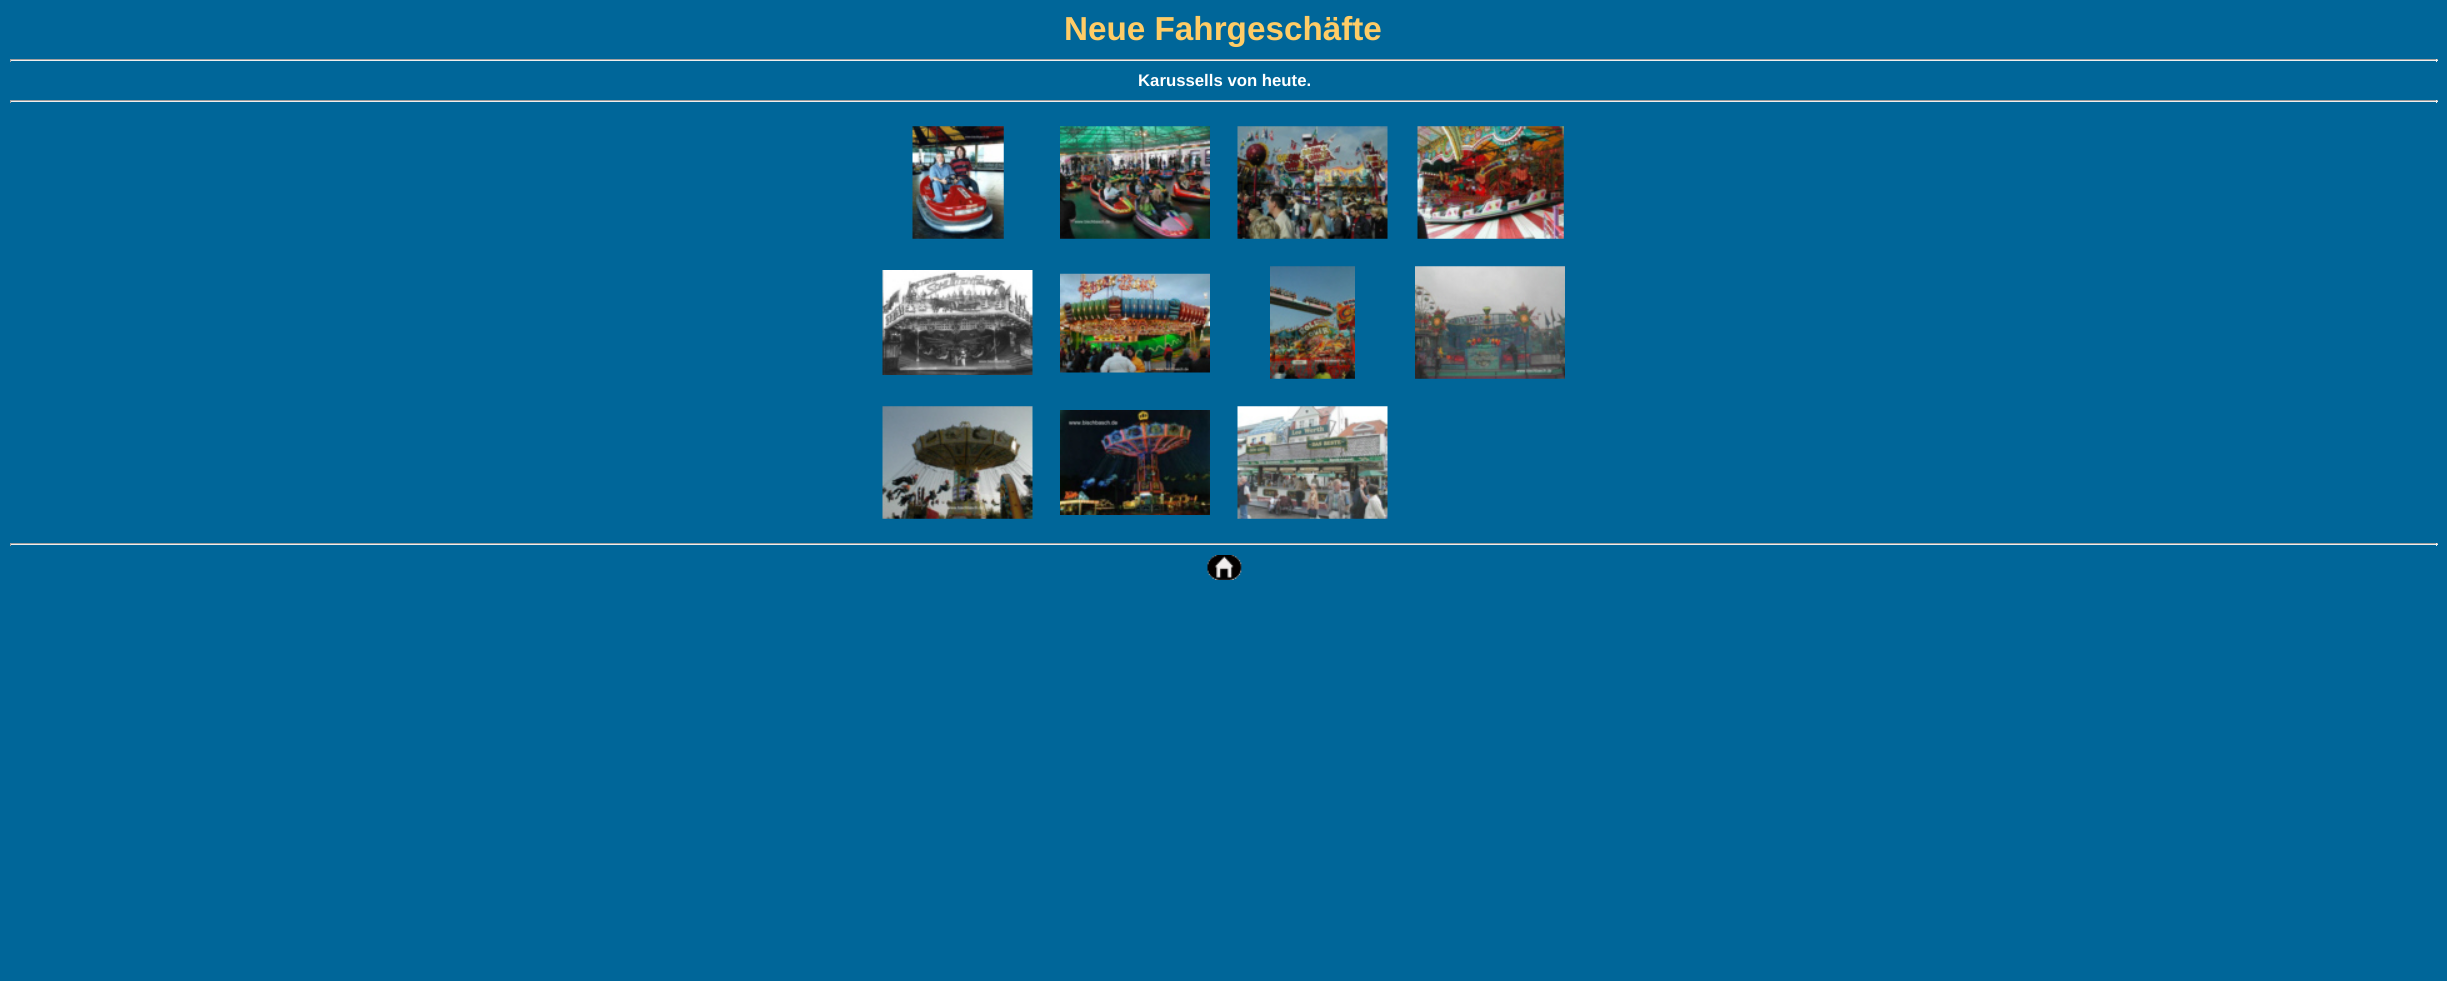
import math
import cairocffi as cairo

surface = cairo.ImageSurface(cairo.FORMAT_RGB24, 2447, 981)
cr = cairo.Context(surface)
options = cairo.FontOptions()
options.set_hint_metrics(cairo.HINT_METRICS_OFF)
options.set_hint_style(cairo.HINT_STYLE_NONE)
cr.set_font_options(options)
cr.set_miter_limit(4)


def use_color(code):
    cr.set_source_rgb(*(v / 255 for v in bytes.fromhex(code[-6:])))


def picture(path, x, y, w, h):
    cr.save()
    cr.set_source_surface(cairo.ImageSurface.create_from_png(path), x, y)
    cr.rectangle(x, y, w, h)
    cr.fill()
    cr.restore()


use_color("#006699")
cr.paint()
cr.select_font_face("Liberation Sans", cairo.FONT_SLANT_NORMAL, cairo.FONT_WEIGHT_BOLD)
cr.set_font_size(33.25)
use_color("#ffcc66")
cr.move_to(1064, 40)
cr.show_text("Neue Fahrgeschäfte")
use_color("#9f9f9f")
cr.rectangle(10, 59, 2428, 1)
cr.fill()
use_color("#eeeeee")
cr.rectangle(2436, 59, 1, 3)
cr.fill()
cr.rectangle(10, 60, 2428, 1)
cr.fill()
use_color("#9f9f9f")
cr.rectangle(10, 59, 1, 3)
cr.fill()
cr.set_font_size(16.75)
use_color("#ffffff")
cr.move_to(1138, 86)
cr.show_text("Karussells von heute.")
use_color("#9f9f9f")
cr.rectangle(10, 100, 2428, 1)
cr.fill()
use_color("#eeeeee")
cr.rectangle(2436, 100, 1, 3)
cr.fill()
cr.rectangle(10, 101, 2428, 1)
cr.fill()
use_color("#9f9f9f")
cr.rectangle(10, 100, 1, 3)
cr.fill()
picture("img1.png", 912, 126, 92, 113)
picture("img2.png", 1060, 126, 150, 113)
picture("img3.png", 1237, 126, 151, 113)
picture("img4.png", 1417, 126, 147, 113)
picture("img5.png", 882, 270, 151, 105)
picture("img6.png", 1060, 273, 150, 100)
picture("img7.png", 1270, 266, 85, 113)
picture("img8.png", 1415, 266, 150, 113)
picture("img9.png", 882, 406, 151, 113)
picture("img10.png", 1060, 410, 150, 105)
picture("img11.png", 1237, 406, 151, 113)
cr.rectangle(10, 543, 2428, 1)
cr.fill()
use_color("#eeeeee")
cr.rectangle(2436, 543, 1, 3)
cr.fill()
cr.rectangle(10, 544, 2428, 1)
cr.fill()
use_color("#9f9f9f")
cr.rectangle(10, 543, 1, 3)
cr.fill()
picture("img12.png", 1207, 555, 35, 25)
surface.write_to_png("result.png")
